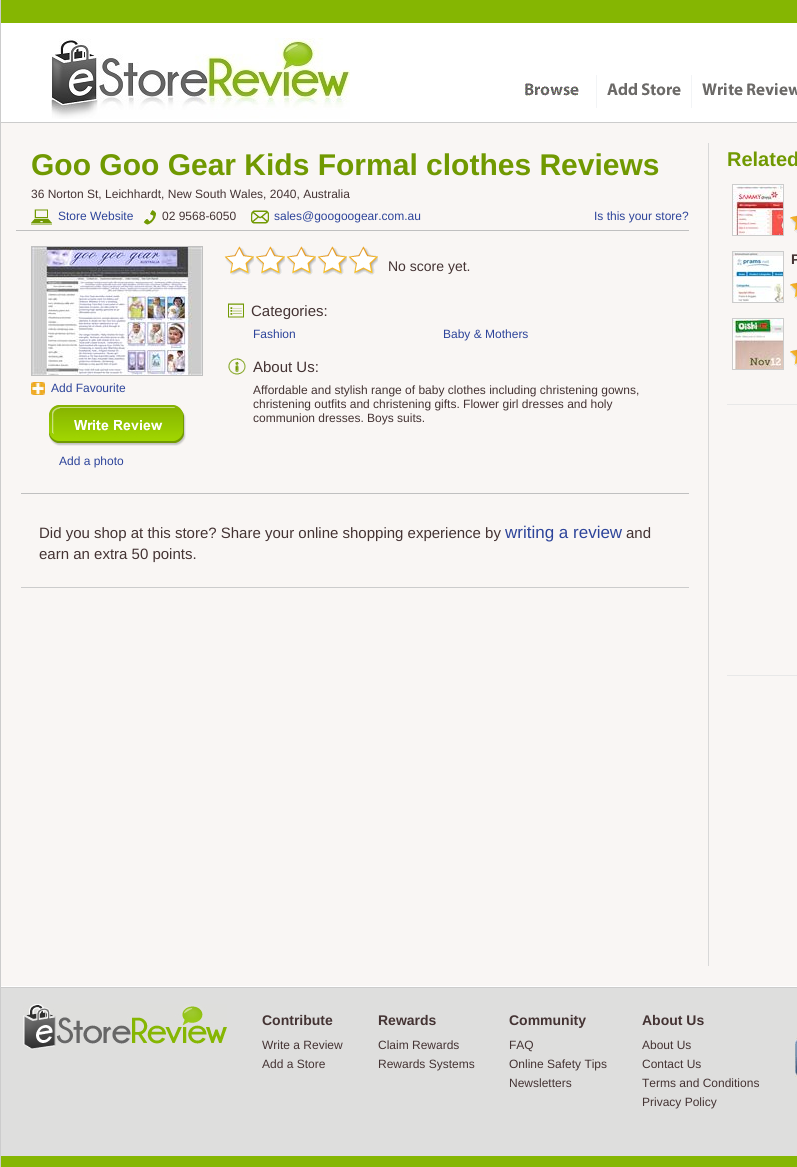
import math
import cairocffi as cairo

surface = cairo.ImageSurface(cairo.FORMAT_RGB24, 797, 1167)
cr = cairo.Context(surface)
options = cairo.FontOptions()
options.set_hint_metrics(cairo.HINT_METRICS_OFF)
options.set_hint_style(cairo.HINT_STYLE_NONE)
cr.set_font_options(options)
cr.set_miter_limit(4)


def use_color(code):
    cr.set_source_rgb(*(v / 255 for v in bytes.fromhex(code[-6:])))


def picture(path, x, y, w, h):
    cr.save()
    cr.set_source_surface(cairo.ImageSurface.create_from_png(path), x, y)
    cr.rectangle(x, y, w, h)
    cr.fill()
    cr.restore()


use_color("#ffffff")
cr.paint()
use_color("#cccccc")
cr.rectangle(0, 0, 1, 1167)
cr.fill()
cr.rectangle(1, 122, 796, 1)
cr.fill()
use_color("#85b602")
cr.rectangle(1, 0, 796, 23)
cr.fill()
picture("img1.png", 51, 38, 299, 81)
picture("img2.png", 525, 83, 54, 13)
use_color("#f2f4f6")
cr.rectangle(596, 75, 1, 33)
cr.fill()
picture("img3.png", 607, 83, 74, 13)
cr.rectangle(691, 75, 1, 33)
cr.fill()
picture("img4.png", 702, 83, 95, 13)
use_color("#f9f6f4")
cr.rectangle(1, 123, 796, 863)
cr.fill()
use_color("#c0c0c0")
cr.rectangle(16, 230, 673, 1)
cr.fill()
cr.select_font_face("Liberation Sans", cairo.FONT_SLANT_NORMAL, cairo.FONT_WEIGHT_BOLD)
cr.set_font_size(30)
use_color("#709901")
cr.move_to(31, 175)
cr.show_text("Goo Goo Gear Kids Formal clothes Reviews")
cr.select_font_face("Liberation Sans")
cr.set_font_size(12)
use_color("#443333")
cr.move_to(31, 198)
cr.show_text("36 Norton St, Leichhardt, New South Wales, 2040, Australia")
picture("img5.png", 31, 209, 21, 16)
use_color("#2d449a")
cr.move_to(58, 220)
cr.show_text("Store Website")
picture("img6.png", 143, 209, 13, 16)
use_color("#443333")
cr.move_to(162, 220)
cr.show_text("02 9568-6050")
picture("img7.png", 251, 210, 18, 14)
use_color("#2d449a")
cr.move_to(274, 220)
cr.show_text("sales@googoogear.com.au")
cr.move_to(594, 220)
cr.show_text("Is this your store?")
cr.rectangle(31.5, 246.5, 171, 129)
use_color("#c0c0c0")
cr.set_line_width(1)
cr.stroke()
picture("img8.png", 32, 247, 170, 128)
picture("img9.png", 31, 382, 14, 13)
use_color("#2d449a")
cr.move_to(51, 392)
cr.show_text("Add Favourite")
picture("img10.png", 49, 405, 137, 41)
cr.move_to(59, 465)
cr.show_text("Add a photo")
picture("img11.png", 224, 246, 154, 29)
cr.set_font_size(14)
use_color("#443333")
cr.move_to(388, 271)
cr.show_text("No score yet.")
picture("img12.png", 228, 303, 16, 15)
cr.set_font_size(15)
cr.move_to(251, 316)
cr.show_text("Categories:")
cr.set_font_size(12)
use_color("#2d449a")
cr.move_to(253, 338)
cr.show_text("Fashion")
cr.move_to(443, 338)
cr.show_text("Baby & Mothers")
picture("img13.png", 228, 358, 18, 17)
cr.set_font_size(15)
use_color("#443333")
cr.move_to(253, 372)
cr.show_text("About Us:")
cr.set_font_size(12)
cr.move_to(253, 394)
cr.show_text("Affordable and stylish range of baby clothes including christening gowns,")
cr.move_to(253, 408)
cr.show_text("christening outfits and christening gifts. Flower girl dresses and holy")
cr.move_to(253, 422)
cr.show_text("communion dresses. Boys suits.")
use_color("#c0c0c0")
cr.rectangle(21, 493, 668, 1)
cr.fill()
use_color("#cccccc")
cr.rectangle(21, 587, 668, 1)
cr.fill()
cr.set_font_size(15)
use_color("#443333")
cr.move_to(39, 538)
cr.show_text("Did you shop at this store? Share your online shopping experience by")
cr.set_font_size(17)
use_color("#2d449a")
cr.move_to(505, 538)
cr.show_text("writing a review")
cr.set_font_size(15)
use_color("#443333")
cr.move_to(626, 538)
cr.show_text("and")
cr.move_to(39, 559)
cr.show_text("earn an extra 50 points.")
use_color("#d8d8d8")
cr.rectangle(708, 143, 1, 823)
cr.fill()
cr.select_font_face("Liberation Sans", cairo.FONT_SLANT_NORMAL, cairo.FONT_WEIGHT_BOLD)
cr.set_font_size(20)
use_color("#709901")
cr.move_to(727, 166)
cr.show_text("Related")
picture("img14.png", 733, 185, 50, 50)
cr.rectangle(732.5, 184.5, 51, 51)
use_color("#cccccc")
cr.stroke()
picture("img15.png", 790, 218, 7, 15)
picture("img16.png", 790, 215, 7, 17)
picture("img17.png", 733, 252, 50, 50)
cr.rectangle(732.5, 251.5, 51, 51)
cr.stroke()
cr.set_font_size(14)
use_color("#443333")
cr.move_to(791, 264)
cr.show_text("P")
picture("img15.png", 790, 285, 7, 15)
picture("img16.png", 790, 282, 7, 17)
picture("img18.png", 733, 319, 50, 50)
cr.rectangle(732.5, 318.5, 51, 51)
use_color("#cccccc")
cr.stroke()
picture("img15.png", 790, 352, 7, 15)
picture("img16.png", 790, 349, 7, 17)
use_color("#e8e8e8")
cr.rectangle(727, 404, 70, 1)
cr.fill()
cr.rectangle(727, 675, 70, 1)
cr.fill()
use_color("#dededd")
cr.rectangle(1, 988, 796, 168)
cr.fill()
use_color("#cccccc")
cr.rectangle(1, 987, 796, 1)
cr.fill()
picture("img19.png", 23, 1004, 204, 46)
use_color("#443333")
cr.move_to(262, 1025)
cr.show_text("Contribute")
cr.select_font_face("Liberation Sans")
cr.set_font_size(12)
cr.move_to(262, 1049)
cr.show_text("Write a Review")
cr.move_to(262, 1068)
cr.show_text("Add a Store")
cr.select_font_face("Liberation Sans", cairo.FONT_SLANT_NORMAL, cairo.FONT_WEIGHT_BOLD)
cr.set_font_size(14)
cr.move_to(378, 1025)
cr.show_text("Rewards")
cr.select_font_face("Liberation Sans")
cr.set_font_size(12)
cr.move_to(378, 1049)
cr.show_text("Claim Rewards")
cr.move_to(378, 1068)
cr.show_text("Rewards Systems")
cr.select_font_face("Liberation Sans", cairo.FONT_SLANT_NORMAL, cairo.FONT_WEIGHT_BOLD)
cr.set_font_size(14)
cr.move_to(509, 1025)
cr.show_text("Community")
cr.select_font_face("Liberation Sans")
cr.set_font_size(12)
cr.move_to(509, 1049)
cr.show_text("FAQ")
cr.move_to(509, 1068)
cr.show_text("Online Safety Tips")
cr.move_to(509, 1087)
cr.show_text("Newsletters")
cr.select_font_face("Liberation Sans", cairo.FONT_SLANT_NORMAL, cairo.FONT_WEIGHT_BOLD)
cr.set_font_size(14)
cr.move_to(642, 1025)
cr.show_text("About Us")
cr.select_font_face("Liberation Sans")
cr.set_font_size(12)
cr.move_to(642, 1049)
cr.show_text("About Us")
cr.move_to(642, 1068)
cr.show_text("Contact Us")
cr.move_to(642, 1087)
cr.show_text("Terms and Conditions")
cr.move_to(642, 1106)
cr.show_text("Privacy Policy")
picture("img20.png", 795, 1038, 2, 40)
use_color("#85b602")
cr.rectangle(1, 1156, 796, 11)
cr.fill()
surface.write_to_png("result.png")
